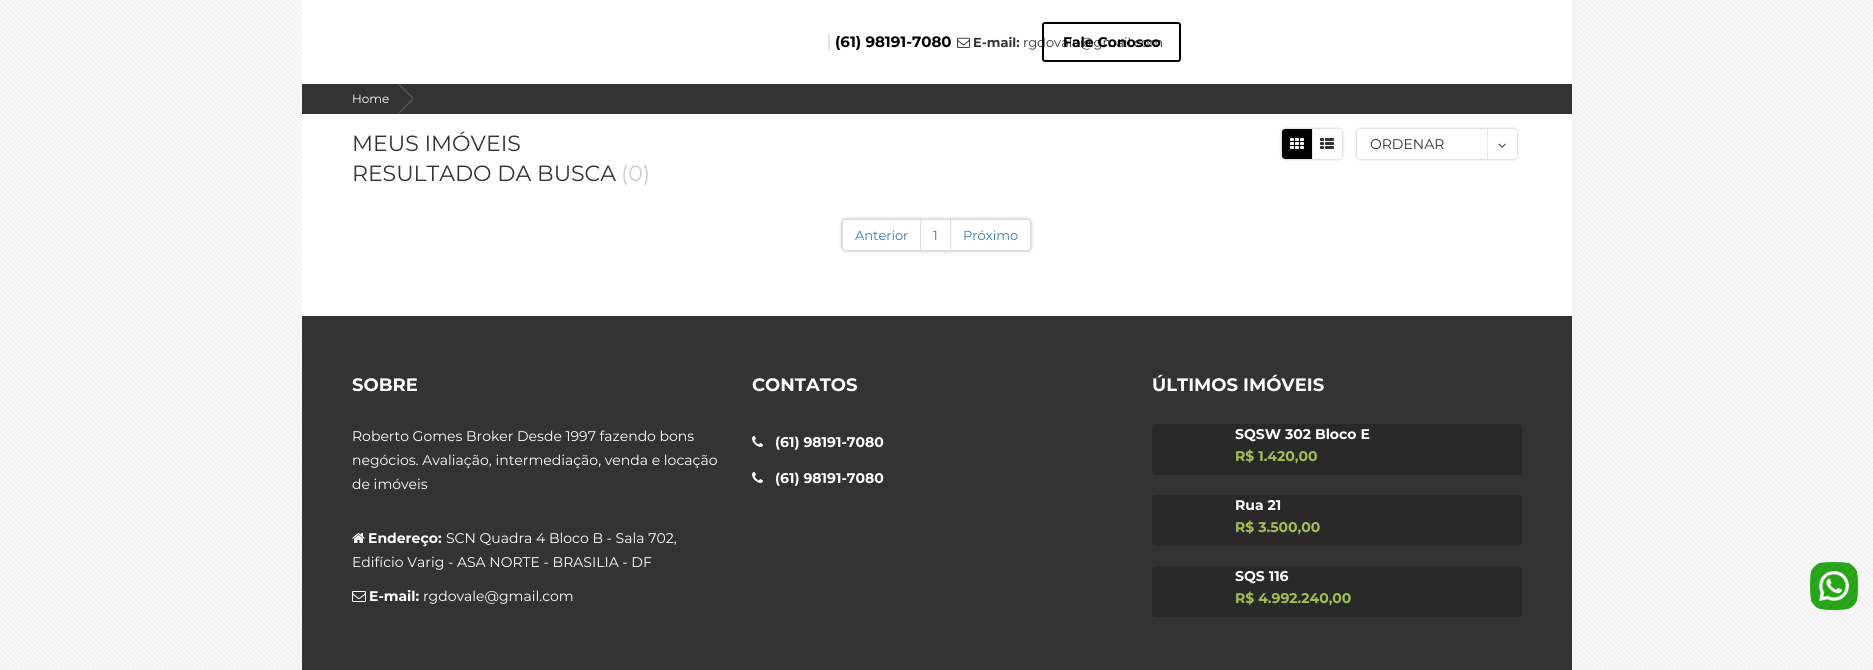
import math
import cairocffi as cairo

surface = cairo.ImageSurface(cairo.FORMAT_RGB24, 1873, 670)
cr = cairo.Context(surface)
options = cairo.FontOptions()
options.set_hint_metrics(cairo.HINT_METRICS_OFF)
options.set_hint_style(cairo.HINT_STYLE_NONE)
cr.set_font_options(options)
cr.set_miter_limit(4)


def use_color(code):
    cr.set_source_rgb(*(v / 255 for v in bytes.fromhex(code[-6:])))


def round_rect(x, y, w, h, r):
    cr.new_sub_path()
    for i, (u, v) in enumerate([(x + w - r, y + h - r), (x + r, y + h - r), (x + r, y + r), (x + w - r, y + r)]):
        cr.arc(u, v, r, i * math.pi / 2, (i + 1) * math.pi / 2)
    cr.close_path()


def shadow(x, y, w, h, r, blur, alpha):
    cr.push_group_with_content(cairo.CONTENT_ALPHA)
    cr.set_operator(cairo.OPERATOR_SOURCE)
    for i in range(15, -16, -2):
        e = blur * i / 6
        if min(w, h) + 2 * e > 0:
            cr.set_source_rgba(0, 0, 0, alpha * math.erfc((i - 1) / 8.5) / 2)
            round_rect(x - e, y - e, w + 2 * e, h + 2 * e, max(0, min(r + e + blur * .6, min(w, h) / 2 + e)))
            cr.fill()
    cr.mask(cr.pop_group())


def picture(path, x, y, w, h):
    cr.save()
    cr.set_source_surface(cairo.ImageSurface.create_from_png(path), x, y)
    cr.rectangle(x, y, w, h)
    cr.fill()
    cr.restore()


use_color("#ffffff")
cr.paint()
picture("img1.png", 0, 0, 1873, 670)
use_color("#ffffff")
cr.rectangle(302, 0, 1270, 316)
cr.fill()
use_color("#e5e5e5")
cr.rectangle(828, 33, 2, 18)
cr.fill()
cr.select_font_face("Montserrat", cairo.FONT_SLANT_NORMAL, cairo.FONT_WEIGHT_BOLD)
cr.set_font_size(15)
use_color("#000000")
cr.move_to(835, 47)
cr.show_text("(61) 98191-7080")
picture("img2.png", 957, 37, 13, 11)
cr.set_font_size(13)
use_color("#333333")
cr.move_to(973, 47)
cr.show_text("E-mail:")
cr.select_font_face("Montserrat")
cr.move_to(1023, 47)
cr.show_text("rgdovale@gmail.com")
round_rect(1043, 23, 137, 38, 2)
use_color("#000000")
cr.stroke()
cr.select_font_face("Montserrat", cairo.FONT_SLANT_NORMAL, cairo.FONT_WEIGHT_BOLD)
cr.set_font_size(14)
cr.move_to(1063, 47)
cr.show_text("Fale Conosco")
use_color("#333333")
cr.rectangle(302, 84, 1270, 30)
cr.fill()
cr.select_font_face("Montserrat")
cr.set_font_size(12)
use_color("#ffffff")
cr.move_to(352, 103)
cr.show_text("Home")
cr.save()
cr.rectangle(352, 84, 62, 30)
cr.clip()
use_color("#5b5b5b")
cr.new_path()
cr.move_to(393.5, 78)
cr.line_to(413.5, 98)
cr.line_to(412.5, 98.5)
cr.line_to(393, 79)
cr.close_path()
cr.fill()
cr.new_path()
cr.move_to(412.5, 98.5)
cr.line_to(413.5, 99.5)
cr.line_to(393.5, 119)
cr.line_to(393, 118.5)
cr.close_path()
cr.fill()
cr.restore()
cr.set_font_size(22)
use_color("#333333")
cr.move_to(352, 151)
cr.show_text("MEUS IMÓVEIS")
cr.move_to(352, 181)
cr.show_text("RESULTADO DA BUSCA")
use_color("#cccccc")
cr.move_to(621, 181)
cr.show_text("(0)")
cr.save()
cr.set_fill_rule(cairo.FILL_RULE_EVEN_ODD)
cr.new_path()
cr.move_to(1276, 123)
cr.line_to(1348, 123)
cr.line_to(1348, 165)
cr.line_to(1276, 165)
cr.close_path()
cr.move_to(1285, 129)
cr.line_to(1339, 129)
cr.curve_to(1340.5, 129, 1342, 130.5, 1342, 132)
cr.line_to(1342, 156)
cr.curve_to(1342, 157.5, 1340.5, 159, 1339, 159)
cr.line_to(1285, 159)
cr.curve_to(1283.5, 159, 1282, 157.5, 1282, 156)
cr.line_to(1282, 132)
cr.curve_to(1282, 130.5, 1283.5, 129, 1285, 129)
cr.close_path()
cr.clip()
use_color("#040404")
shadow(1282, 129, 60, 30, 3, 1.5, 0.3)
cr.restore()
use_color("#000000")
cr.new_path()
cr.move_to(1285, 129)
cr.line_to(1313, 129)
cr.line_to(1313, 159)
cr.line_to(1285, 159)
cr.curve_to(1283.5, 159, 1282, 157.5, 1282, 156)
cr.line_to(1282, 132)
cr.curve_to(1282, 130.5, 1283.5, 129, 1285, 129)
cr.close_path()
cr.fill()
use_color("#e6e6e6")
cr.rectangle(1312, 129, 1, 30)
cr.fill()
picture("img3.png", 1290, 138, 14, 11)
picture("img4.png", 1320, 138, 14, 11)
cr.save()
cr.set_fill_rule(cairo.FILL_RULE_EVEN_ODD)
cr.new_path()
cr.move_to(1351, 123)
cr.line_to(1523, 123)
cr.line_to(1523, 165)
cr.line_to(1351, 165)
cr.close_path()
cr.move_to(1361, 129)
cr.line_to(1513, 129)
cr.curve_to(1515, 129, 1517, 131, 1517, 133)
cr.line_to(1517, 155)
cr.curve_to(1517, 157, 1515, 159, 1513, 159)
cr.line_to(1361, 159)
cr.curve_to(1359, 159, 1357, 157, 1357, 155)
cr.line_to(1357, 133)
cr.curve_to(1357, 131, 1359, 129, 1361, 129)
cr.close_path()
cr.clip()
use_color("#040404")
shadow(1357, 129, 160, 30, 4, 1.5, 0.3)
cr.restore()
cr.set_font_size(14)
use_color("#333333")
cr.move_to(1370, 149)
cr.show_text("ORDENAR")
use_color("#e6e6e6")
cr.rectangle(1487, 129, 1, 30)
cr.fill()
picture("img5.png", 1498, 143, 8, 5)
use_color("#040404")
shadow(842, 219, 189, 32, 4, 1.5, 0.3)
use_color("#ffffff")
cr.new_path()
cr.move_to(846, 219.5)
cr.line_to(920.5, 219.5)
cr.line_to(920.5, 250.5)
cr.line_to(846, 250.5)
cr.curve_to(844, 250.5, 842.5, 249, 842.5, 247)
cr.line_to(842.5, 223)
cr.curve_to(842.5, 221, 844, 219.5, 846, 219.5)
cr.close_path()
cr.fill_preserve()
use_color("#dddddd")
cr.set_line_width(1)
cr.stroke()
cr.set_font_size(13)
use_color("#337ab7")
cr.move_to(855, 240)
cr.show_text("Anterior")
use_color("#ffffff")
cr.rectangle(920.5, 219.5, 30, 31)
cr.fill_preserve()
use_color("#dddddd")
cr.stroke()
use_color("#337ab7")
cr.move_to(933, 240)
cr.show_text("1")
use_color("#ffffff")
cr.new_path()
cr.move_to(950.5, 219.5)
cr.line_to(1027, 219.5)
cr.curve_to(1029, 219.5, 1030.5, 221, 1030.5, 223)
cr.line_to(1030.5, 247)
cr.curve_to(1030.5, 249, 1029, 250.5, 1027, 250.5)
cr.line_to(950.5, 250.5)
cr.close_path()
cr.fill_preserve()
use_color("#dddddd")
cr.stroke()
use_color("#337ab7")
cr.move_to(963, 240)
cr.show_text("Próximo")
use_color("#333333")
cr.rectangle(302, 316, 1270, 354)
cr.fill()
cr.select_font_face("Montserrat", cairo.FONT_SLANT_NORMAL, cairo.FONT_WEIGHT_BOLD)
cr.set_font_size(18)
use_color("#ffffff")
cr.move_to(352, 391)
cr.show_text("SOBRE")
cr.select_font_face("Montserrat")
cr.set_font_size(14)
cr.move_to(352, 441)
cr.show_text("Roberto Gomes Broker Desde 1997 fazendo bons")
cr.move_to(352, 465)
cr.show_text("negócios. Avaliação, intermediação, venda e locação")
cr.move_to(352, 489)
cr.show_text("de imóveis")
picture("img6.png", 352, 533, 13, 10)
cr.select_font_face("Montserrat", cairo.FONT_SLANT_NORMAL, cairo.FONT_WEIGHT_BOLD)
cr.move_to(368, 543)
cr.show_text("Endereço:")
cr.select_font_face("Montserrat")
cr.move_to(446, 543)
cr.show_text("SCN Quadra 4 Bloco B - Sala 702,")
cr.move_to(352, 567)
cr.show_text("Edifício Varig - ASA NORTE - BRASILIA - DF")
picture("img7.png", 352, 591, 14, 11)
cr.select_font_face("Montserrat", cairo.FONT_SLANT_NORMAL, cairo.FONT_WEIGHT_BOLD)
cr.move_to(369, 601)
cr.show_text("E-mail:")
cr.select_font_face("Montserrat")
cr.move_to(423, 601)
cr.show_text("rgdovale@gmail.com")
cr.select_font_face("Montserrat", cairo.FONT_SLANT_NORMAL, cairo.FONT_WEIGHT_BOLD)
cr.set_font_size(18)
cr.move_to(752, 391)
cr.show_text("CONTATOS")
picture("img8.png", 752, 436, 11, 11)
cr.set_font_size(14)
cr.move_to(775, 447)
cr.show_text("(61) 98191-7080")
picture("img8.png", 752, 472, 11, 11)
cr.move_to(775, 483)
cr.show_text("(61) 98191-7080")
cr.set_font_size(18)
cr.move_to(1152, 391)
cr.show_text("ÚLTIMOS IMÓVEIS")
use_color("#292929")
round_rect(1152, 424, 370, 51, 4)
cr.fill()
cr.set_font_size(14)
use_color("#ffffff")
cr.move_to(1235, 439)
cr.show_text("SQSW 302 Bloco E")
use_color("#a2bf52")
cr.move_to(1235, 461)
cr.show_text("R$ 1.420,00")
use_color("#292929")
round_rect(1152, 495, 370, 51, 4)
cr.fill()
use_color("#ffffff")
cr.move_to(1235, 510)
cr.show_text("Rua 21")
use_color("#a2bf52")
cr.move_to(1235, 532)
cr.show_text("R$ 3.500,00")
use_color("#292929")
round_rect(1152, 566, 370, 51, 4)
cr.fill()
use_color("#ffffff")
cr.move_to(1235, 581)
cr.show_text("SQS 116")
use_color("#a2bf52")
cr.move_to(1235, 603)
cr.show_text("R$ 4.992.240,00")
picture("img9.png", 1810, 562, 48, 48)
surface.write_to_png("result.png")
